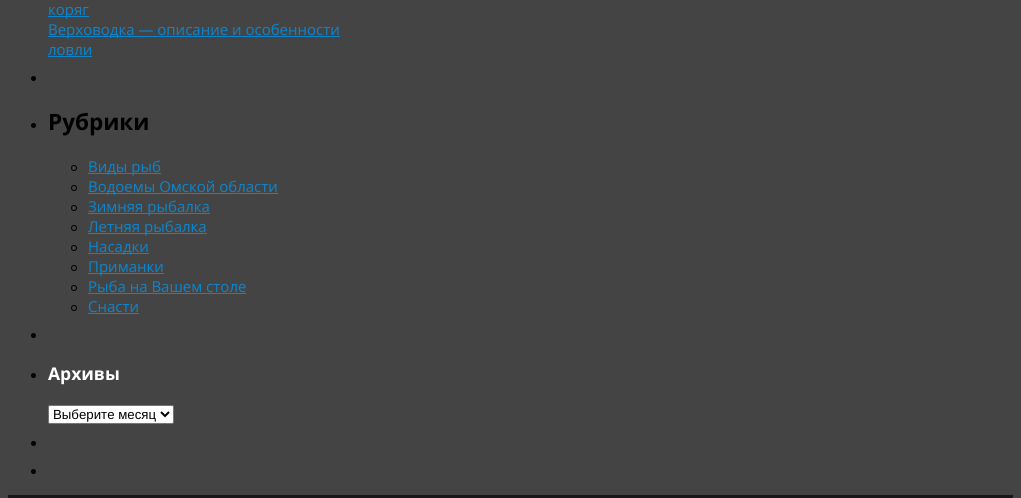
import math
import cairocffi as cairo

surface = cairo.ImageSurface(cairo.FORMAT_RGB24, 1021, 498)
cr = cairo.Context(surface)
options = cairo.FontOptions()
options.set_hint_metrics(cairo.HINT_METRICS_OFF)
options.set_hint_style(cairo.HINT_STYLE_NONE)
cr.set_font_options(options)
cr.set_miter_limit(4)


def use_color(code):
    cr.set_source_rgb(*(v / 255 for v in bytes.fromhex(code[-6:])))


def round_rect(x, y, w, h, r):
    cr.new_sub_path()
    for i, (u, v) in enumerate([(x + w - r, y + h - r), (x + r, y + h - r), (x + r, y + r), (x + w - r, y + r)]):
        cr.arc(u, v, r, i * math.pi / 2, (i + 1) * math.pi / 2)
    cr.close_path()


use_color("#444444")
cr.paint()
use_color("#0d85cc")
cr.rectangle(48, 16, 41, 1)
cr.fill()
cr.select_font_face("Open Sans")
cr.set_font_size(15)
cr.move_to(48, 15)
cr.show_text("коряг")
cr.rectangle(48, 36, 292, 1)
cr.fill()
cr.move_to(48, 35)
cr.show_text("Верховодка — описание и особенности")
cr.move_to(48, 55)
cr.show_text("ловли")
cr.rectangle(48, 56, 44, 1)
cr.fill()
use_color("#000000")
cr.arc(33.5, 78.5, 2.5, 0, 2 * math.pi)
cr.fill()
cr.arc(33.5, 125.5, 2.5, 0, 2 * math.pi)
cr.fill()
cr.select_font_face("Open Sans", cairo.FONT_SLANT_NORMAL, cairo.FONT_WEIGHT_BOLD)
cr.set_font_size(22.5)
cr.move_to(48, 130)
cr.show_text("Рубрики")
cr.new_path()
cr.arc(74, 168, 2.5, 0, 2 * math.pi)
cr.set_line_width(1)
cr.stroke()
use_color("#0d85cc")
cr.rectangle(88, 173, 73, 1)
cr.fill()
cr.select_font_face("Open Sans")
cr.set_font_size(15)
cr.move_to(88, 172)
cr.show_text("Виды рыб")
cr.new_path()
cr.arc(74, 188, 2.5, 0, 2 * math.pi)
use_color("#000000")
cr.stroke()
use_color("#0d85cc")
cr.rectangle(88, 193, 190, 1)
cr.fill()
cr.move_to(88, 192)
cr.show_text("Водоемы Омской области")
cr.new_path()
cr.arc(74, 208, 2.5, 0, 2 * math.pi)
use_color("#000000")
cr.stroke()
use_color("#0d85cc")
cr.rectangle(88, 213, 122, 1)
cr.fill()
cr.move_to(88, 212)
cr.show_text("Зимняя рыбалка")
cr.new_path()
cr.arc(74, 228, 2.5, 0, 2 * math.pi)
use_color("#000000")
cr.stroke()
use_color("#0d85cc")
cr.rectangle(88, 233, 119, 1)
cr.fill()
cr.move_to(88, 232)
cr.show_text("Летняя рыбалка")
cr.new_path()
cr.arc(74, 248, 2.5, 0, 2 * math.pi)
use_color("#000000")
cr.stroke()
use_color("#0d85cc")
cr.rectangle(88, 253, 61, 1)
cr.fill()
cr.move_to(88, 252)
cr.show_text("Насадки")
cr.new_path()
cr.arc(74, 268, 2.5, 0, 2 * math.pi)
use_color("#000000")
cr.stroke()
use_color("#0d85cc")
cr.rectangle(88, 273, 76, 1)
cr.fill()
cr.move_to(88, 272)
cr.show_text("Приманки")
cr.new_path()
cr.arc(74, 288, 2.5, 0, 2 * math.pi)
use_color("#000000")
cr.stroke()
use_color("#0d85cc")
cr.move_to(88, 292)
cr.show_text("Рыба на Вашем столе")
cr.rectangle(88, 293, 158, 1)
cr.fill()
cr.arc(74, 308, 2.5, 0, 2 * math.pi)
use_color("#000000")
cr.stroke()
use_color("#0d85cc")
cr.move_to(88, 312)
cr.show_text("Снасти")
cr.rectangle(88, 313, 51, 1)
cr.fill()
use_color("#000000")
cr.arc(33.5, 335.5, 2.5, 0, 2 * math.pi)
cr.fill()
cr.arc(33.5, 375.5, 2.5, 0, 2 * math.pi)
cr.fill()
cr.select_font_face("Open Sans", cairo.FONT_SLANT_NORMAL, cairo.FONT_WEIGHT_BOLD)
cr.set_font_size(17.5)
use_color("#ffffff")
cr.move_to(48, 380)
cr.show_text("Архивы")
round_rect(48.5, 405.5, 125, 18, 1.5)
cr.fill_preserve()
use_color("#767676")
cr.stroke()
cr.new_path()
cr.move_to(161, 412)
cr.line_to(165, 416)
cr.line_to(169, 412)
use_color("#000000")
cr.set_line_width(2)
cr.stroke()
cr.select_font_face("Liberation Sans")
cr.set_font_size(13.25)
cr.move_to(53, 419)
cr.show_text("Выберите месяц")
cr.new_path()
cr.arc(33.5, 443.5, 2.5, 0, 2 * math.pi)
cr.fill()
cr.arc(33.5, 471.5, 2.5, 0, 2 * math.pi)
cr.fill()
use_color("#171717")
cr.rectangle(8, 495, 1005, 3)
cr.fill()
surface.write_to_png("result.png")
